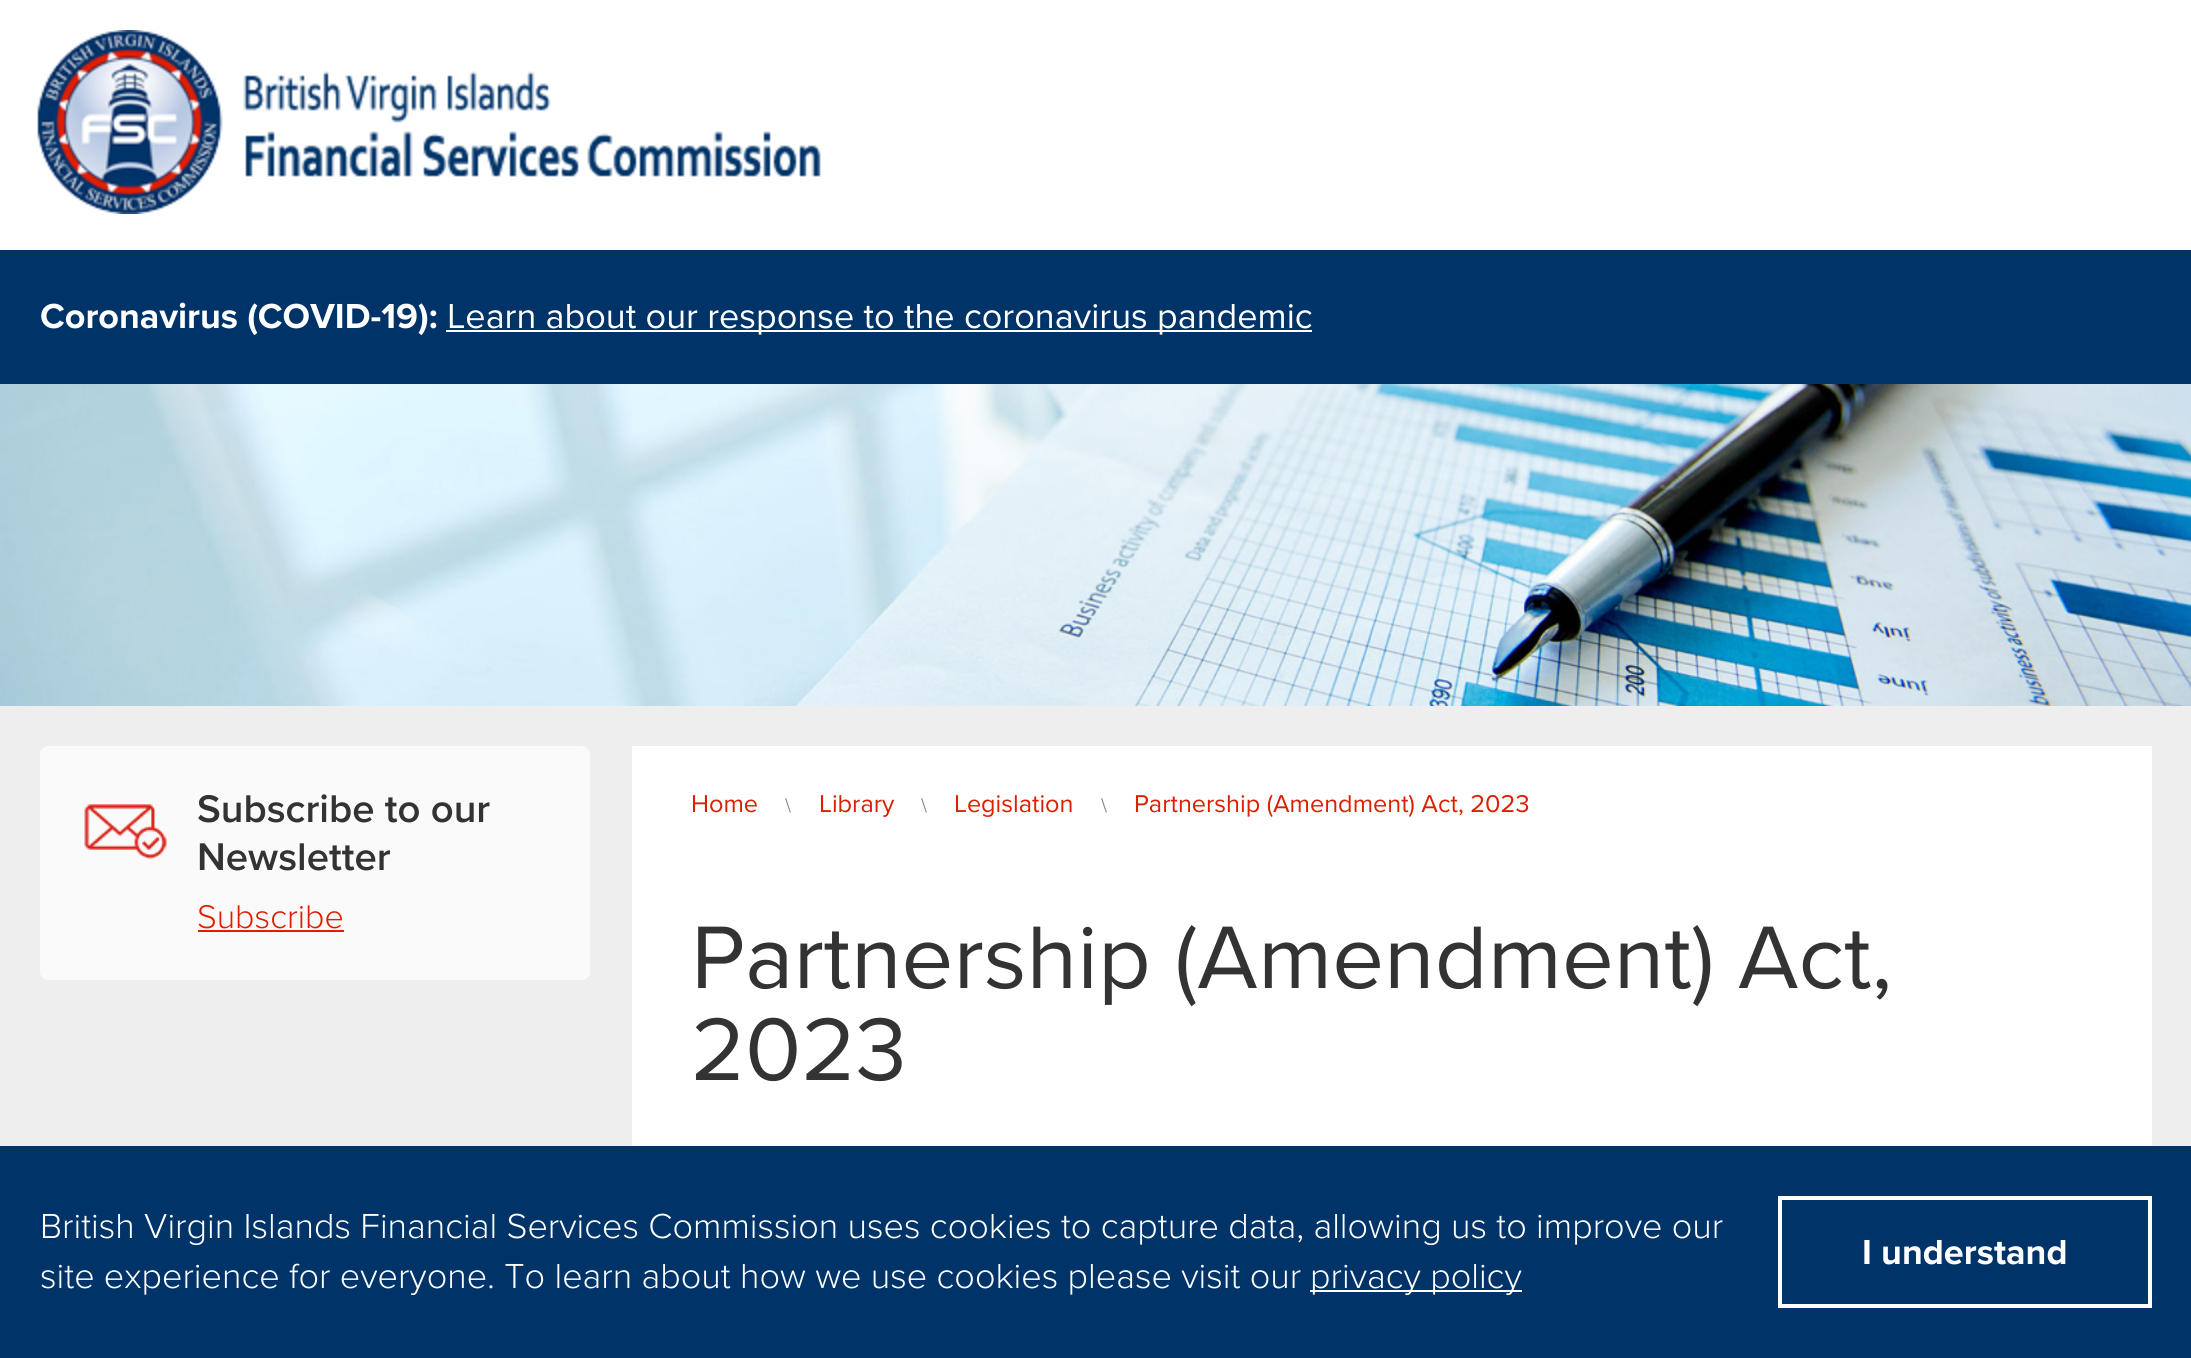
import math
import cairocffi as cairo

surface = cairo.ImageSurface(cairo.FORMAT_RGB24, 2191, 1358)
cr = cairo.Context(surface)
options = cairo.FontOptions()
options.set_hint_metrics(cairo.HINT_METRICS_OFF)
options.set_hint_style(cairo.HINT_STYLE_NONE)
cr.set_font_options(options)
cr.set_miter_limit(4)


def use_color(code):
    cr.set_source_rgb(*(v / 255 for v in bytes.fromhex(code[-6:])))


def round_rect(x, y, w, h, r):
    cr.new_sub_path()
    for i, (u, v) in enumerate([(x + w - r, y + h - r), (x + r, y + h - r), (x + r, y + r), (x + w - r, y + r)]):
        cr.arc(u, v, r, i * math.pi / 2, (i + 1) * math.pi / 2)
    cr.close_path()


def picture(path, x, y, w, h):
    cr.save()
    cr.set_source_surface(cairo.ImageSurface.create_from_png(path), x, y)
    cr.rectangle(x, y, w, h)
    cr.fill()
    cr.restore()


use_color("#ffffff")
cr.paint()
picture("img1.png", 37, 30, 784, 184)
use_color("#003469")
cr.rectangle(0, 250, 2191, 134)
cr.fill()
cr.select_font_face("Proxima Nova", cairo.FONT_SLANT_NORMAL, cairo.FONT_WEIGHT_BOLD)
cr.set_font_size(36)
use_color("#ffffff")
cr.move_to(40, 328)
cr.show_text("Coronavirus (COVID-19):")
cr.rectangle(446, 330, 866, 2)
cr.fill()
cr.select_font_face("Proxima Nova")
cr.move_to(447, 328)
cr.show_text("Learn about our response to the coronavirus pandemic")
picture("img2.png", 0, 384, 2191, 322)
use_color("#eeeeee")
cr.rectangle(0, 706, 2191, 440)
cr.fill()
use_color("#ffffff")
cr.rectangle(632, 746, 1520, 400)
cr.fill()
cr.set_font_size(25.25)
use_color("#dc1f00")
cr.move_to(691, 812)
cr.show_text("Home")
cr.set_font_size(20)
use_color("#888888")
cr.move_to(785, 812)
cr.show_text("\\")
cr.set_font_size(25.25)
use_color("#dc1f00")
cr.move_to(819, 812)
cr.show_text("Library")
cr.set_font_size(20)
use_color("#888888")
cr.move_to(921, 812)
cr.show_text("\\")
cr.set_font_size(25.25)
use_color("#dc1f00")
cr.move_to(954, 812)
cr.show_text("Legislation")
cr.set_font_size(20)
use_color("#888888")
cr.move_to(1101, 812)
cr.show_text("\\")
cr.set_font_size(25.25)
use_color("#dc1f00")
cr.move_to(1134, 812)
cr.show_text("Partnership (Amendment) Act, 2023")
cr.set_font_size(92)
use_color("#333333")
cr.move_to(691, 988)
cr.show_text("Partnership (Amendment) Act,")
cr.move_to(691, 1080)
cr.show_text("2023")
use_color("#003469")
cr.rectangle(0, 1146, 2191, 212)
cr.fill()
cr.select_font_face("Proxima Nova Light")
cr.set_font_size(36)
use_color("#ffffff")
cr.move_to(40, 1238)
cr.show_text("British Virgin Islands Financial Services Commission uses cookies to capture data, allowing us to improve our")
cr.move_to(40, 1288)
cr.show_text("site experience for everyone. To learn about how we use cookies please visit our")
cr.rectangle(1310, 1290, 212, 2)
cr.fill()
cr.move_to(1310, 1288)
cr.show_text("privacy policy")
cr.rectangle(1780, 1198, 370, 108)
cr.set_line_width(4)
cr.stroke()
cr.select_font_face("Proxima Nova", cairo.FONT_SLANT_NORMAL, cairo.FONT_WEIGHT_BOLD)
cr.move_to(1862, 1264)
cr.show_text("I understand")
use_color("#fafafa")
round_rect(40, 746, 550, 234, 8)
cr.fill()
picture("img3.png", 84, 804, 83, 56)
cr.select_font_face("Proxima Nova SemiBold")
cr.set_font_size(40)
use_color("#333333")
cr.move_to(197, 822)
cr.show_text("Subscribe to our")
cr.move_to(197, 870)
cr.show_text("Newsletter")
cr.select_font_face("Proxima Nova Light")
cr.set_font_size(34)
use_color("#dc1f00")
cr.move_to(197, 928)
cr.show_text("Subscribe")
cr.rectangle(198, 930, 146, 2)
cr.fill()
surface.write_to_png("result.png")
